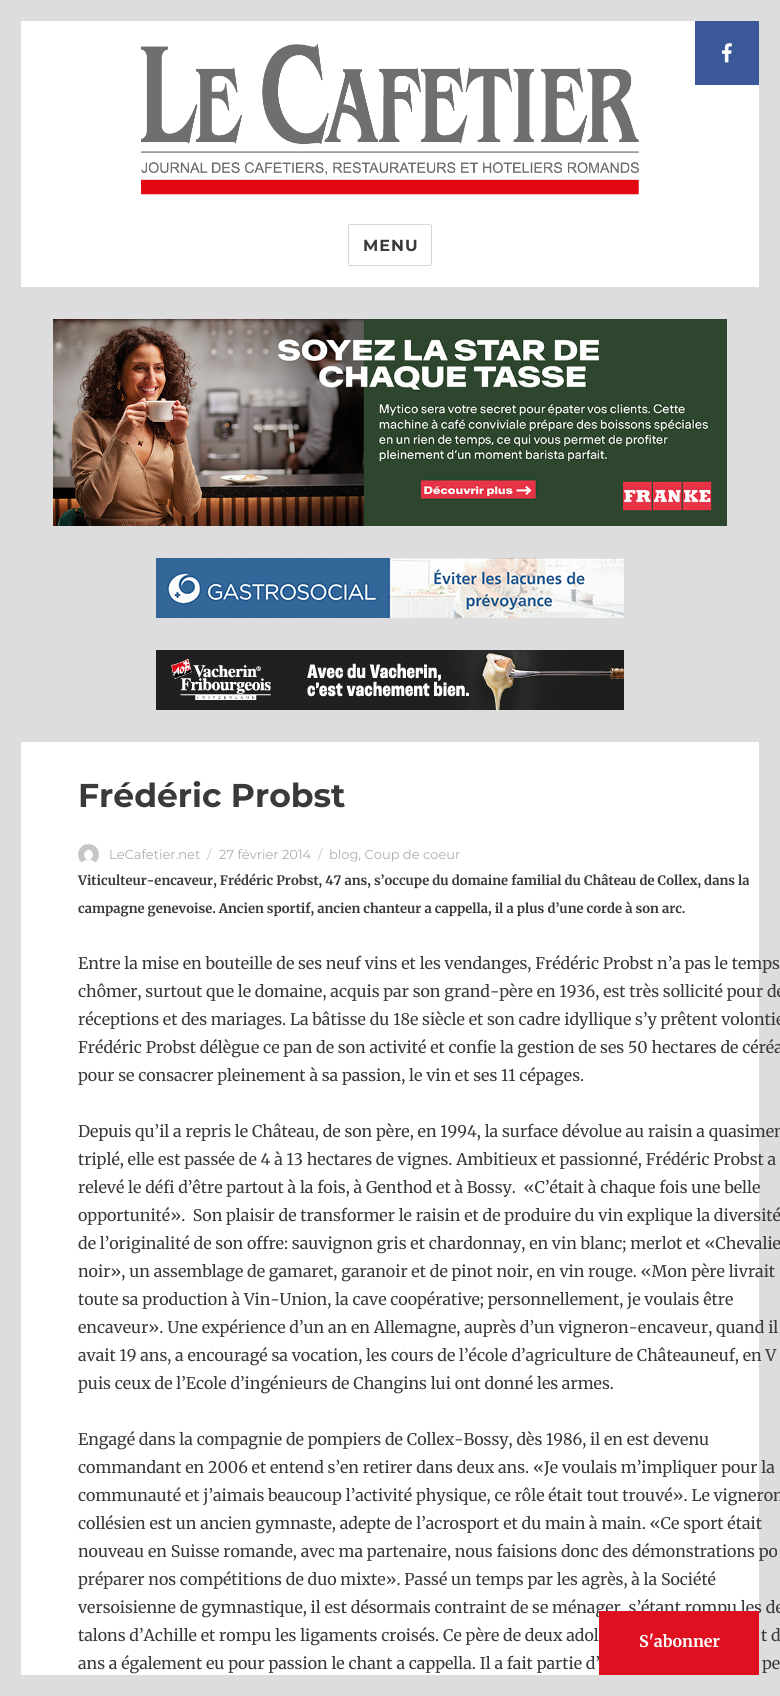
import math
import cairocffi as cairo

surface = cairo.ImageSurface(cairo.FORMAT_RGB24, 780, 1696)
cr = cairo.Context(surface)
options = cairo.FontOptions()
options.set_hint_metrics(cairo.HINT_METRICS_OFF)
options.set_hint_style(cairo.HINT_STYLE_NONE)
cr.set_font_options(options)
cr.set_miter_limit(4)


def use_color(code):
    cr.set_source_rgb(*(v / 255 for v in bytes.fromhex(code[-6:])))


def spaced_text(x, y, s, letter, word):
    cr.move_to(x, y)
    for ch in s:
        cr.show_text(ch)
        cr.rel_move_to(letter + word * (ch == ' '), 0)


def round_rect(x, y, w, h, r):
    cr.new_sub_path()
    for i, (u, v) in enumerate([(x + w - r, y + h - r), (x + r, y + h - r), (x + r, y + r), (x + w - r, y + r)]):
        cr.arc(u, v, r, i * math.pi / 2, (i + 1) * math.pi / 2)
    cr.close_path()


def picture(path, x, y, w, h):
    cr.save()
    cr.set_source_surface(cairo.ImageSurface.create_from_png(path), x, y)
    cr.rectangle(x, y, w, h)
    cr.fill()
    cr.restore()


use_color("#dddddd")
cr.paint()
use_color("#ffffff")
cr.rectangle(21, 21, 738, 1654)
cr.fill()
picture("img1.png", 141, 43, 498, 152)
round_rect(348.5, 224.5, 83, 41, 1.5)
use_color("#d8d8d8")
cr.set_line_width(1)
cr.stroke()
cr.select_font_face("Montserrat", cairo.FONT_SLANT_NORMAL, cairo.FONT_WEIGHT_BOLD)
cr.set_font_size(16)
use_color("#3a3a3a")
spaced_text(363, 251, "MENU", 1, 0)
use_color("#dddddd")
cr.rectangle(21, 287, 738, 455)
cr.fill()
picture("img2.png", 53, 319, 674, 207)
picture("img3.png", 156, 558, 468, 60)
picture("img4.png", 156, 650, 468, 60)
cr.set_font_size(33)
use_color("#3a3a3a")
cr.move_to(78, 807)
cr.show_text("Frédéric Probst")
picture("img5.png", 78, 844, 21, 19)
cr.select_font_face("Montserrat")
cr.set_font_size(13)
use_color("#adadad")
cr.move_to(109, 859)
cr.show_text("LeCafetier.net")
use_color("#c6c6c6")
cr.move_to(207, 859)
cr.show_text("/")
use_color("#adadad")
cr.move_to(219, 859)
cr.show_text("27 février 2014")
use_color("#c6c6c6")
cr.move_to(318, 859)
cr.show_text("/")
use_color("#adadad")
cr.move_to(329, 859)
cr.show_text("blog, Coup de coeur")
cr.select_font_face("Merriweather", cairo.FONT_SLANT_NORMAL, cairo.FONT_WEIGHT_BOLD)
use_color("#3a3a3a")
cr.move_to(78, 885)
cr.show_text("Viticulteur-encaveur, Frédéric Probst, 47 ans, s’occupe du domaine familial du Château de Collex, dans la")
cr.move_to(78, 913)
cr.show_text("campagne genevoise. Ancien sportif, ancien chanteur a cappella, il a plus d’une corde à son arc.")
cr.select_font_face("Merriweather")
cr.set_font_size(16)
cr.move_to(78, 969)
cr.show_text("Entre la mise en bouteille de ses neuf vins et les vendanges, Frédéric Probst n’a pas le temps")
cr.move_to(78, 997)
cr.show_text("chômer, surtout que le domaine, acquis par son grand-père en 1936, est très sollicité pour de")
cr.move_to(78, 1025)
cr.show_text("réceptions et des mariages. La bâtisse du 18e siècle et son cadre idyllique s’y prêtent volontie")
cr.move_to(78, 1053)
cr.show_text("Frédéric Probst délègue ce pan de son activité et confie la gestion de ses 50 hectares de céréa")
cr.move_to(78, 1081)
cr.show_text("pour se consacrer pleinement à sa passion, le vin et ses 11 cépages.")
cr.move_to(78, 1137)
cr.show_text("Depuis qu’il a repris le Château, de son père, en 1994, la surface dévolue au raisin a quasimen")
cr.move_to(78, 1165)
cr.show_text("triplé, elle est passée de 4 à 13 hectares de vignes. Ambitieux et passionné, Frédéric Probst a")
cr.move_to(78, 1193)
cr.show_text("relevé le défi d’être partout à la fois, à Genthod et à Bossy.  «C’était à chaque fois une belle")
cr.move_to(78, 1221)
cr.show_text("opportunité».  Son plaisir de transformer le raisin et de produire du vin explique la diversité")
cr.move_to(78, 1249)
cr.show_text("de l’originalité de son offre: sauvignon gris et chardonnay, en vin blanc; merlot et «Chevalie")
cr.move_to(78, 1277)
cr.show_text("noir», un assemblage de gamaret, garanoir et de pinot noir, en vin rouge. «Mon père livrait")
cr.move_to(78, 1305)
cr.show_text("toute sa production à Vin-Union, la cave coopérative; personnellement, je voulais être")
cr.move_to(78, 1333)
cr.show_text("encaveur». Une expérience d’un an en Allemagne, auprès d’un vigneron-encaveur, quand il")
cr.move_to(78, 1361)
cr.show_text("avait 19 ans, a encouragé sa vocation, les cours de l’école d’agriculture de Châteauneuf, en V")
cr.move_to(78, 1389)
cr.show_text("puis ceux de l’Ecole d’ingénieurs de Changins lui ont donné les armes.")
cr.move_to(78, 1445)
cr.show_text("Engagé dans la compagnie de pompiers de Collex-Bossy, dès 1986, il en est devenu")
cr.move_to(78, 1473)
cr.show_text("commandant en 2006 et entend s’en retirer dans deux ans. «Je voulais m’impliquer pour la")
cr.move_to(78, 1501)
cr.show_text("communauté et j’aimais beaucoup l’activité physique, ce rôle était tout trouvé». Le vigneron")
cr.move_to(78, 1529)
cr.show_text("collésien est un ancien gymnaste, adepte de l’acrosport et du main à main. «Ce sport était")
cr.move_to(78, 1557)
cr.show_text("nouveau en Suisse romande, avec ma partenaire, nous faisions donc des démonstrations po")
cr.move_to(78, 1585)
cr.show_text("préparer nos compétitions de duo mixte». Passé un temps par les agrès, à la Société")
cr.move_to(78, 1613)
cr.show_text("versoisienne de gymnastique, il est désormais contraint de se ménager, s’étant rompu les de")
cr.move_to(78, 1641)
cr.show_text("talons d’Achille et rompu les ligaments croisés. Ce père de deux adol")
cr.move_to(761, 1641)
cr.show_text("t d")
cr.move_to(78, 1669)
cr.show_text("ans a également eu pour passion le chant a cappella. Il a fait partie d’")
cr.move_to(762, 1669)
cr.show_text("pe")
use_color("#3b5998")
cr.rectangle(695, 21, 64, 64)
cr.fill()
picture("img6.png", 722, 43, 10, 20)
use_color("#e01021")
cr.rectangle(599, 1611, 160, 64)
cr.fill()
cr.select_font_face("Merriweather", cairo.FONT_SLANT_NORMAL, cairo.FONT_WEIGHT_BOLD)
use_color("#ffffff")
cr.move_to(639, 1647)
cr.show_text("S'abonner")
surface.write_to_png("result.png")
